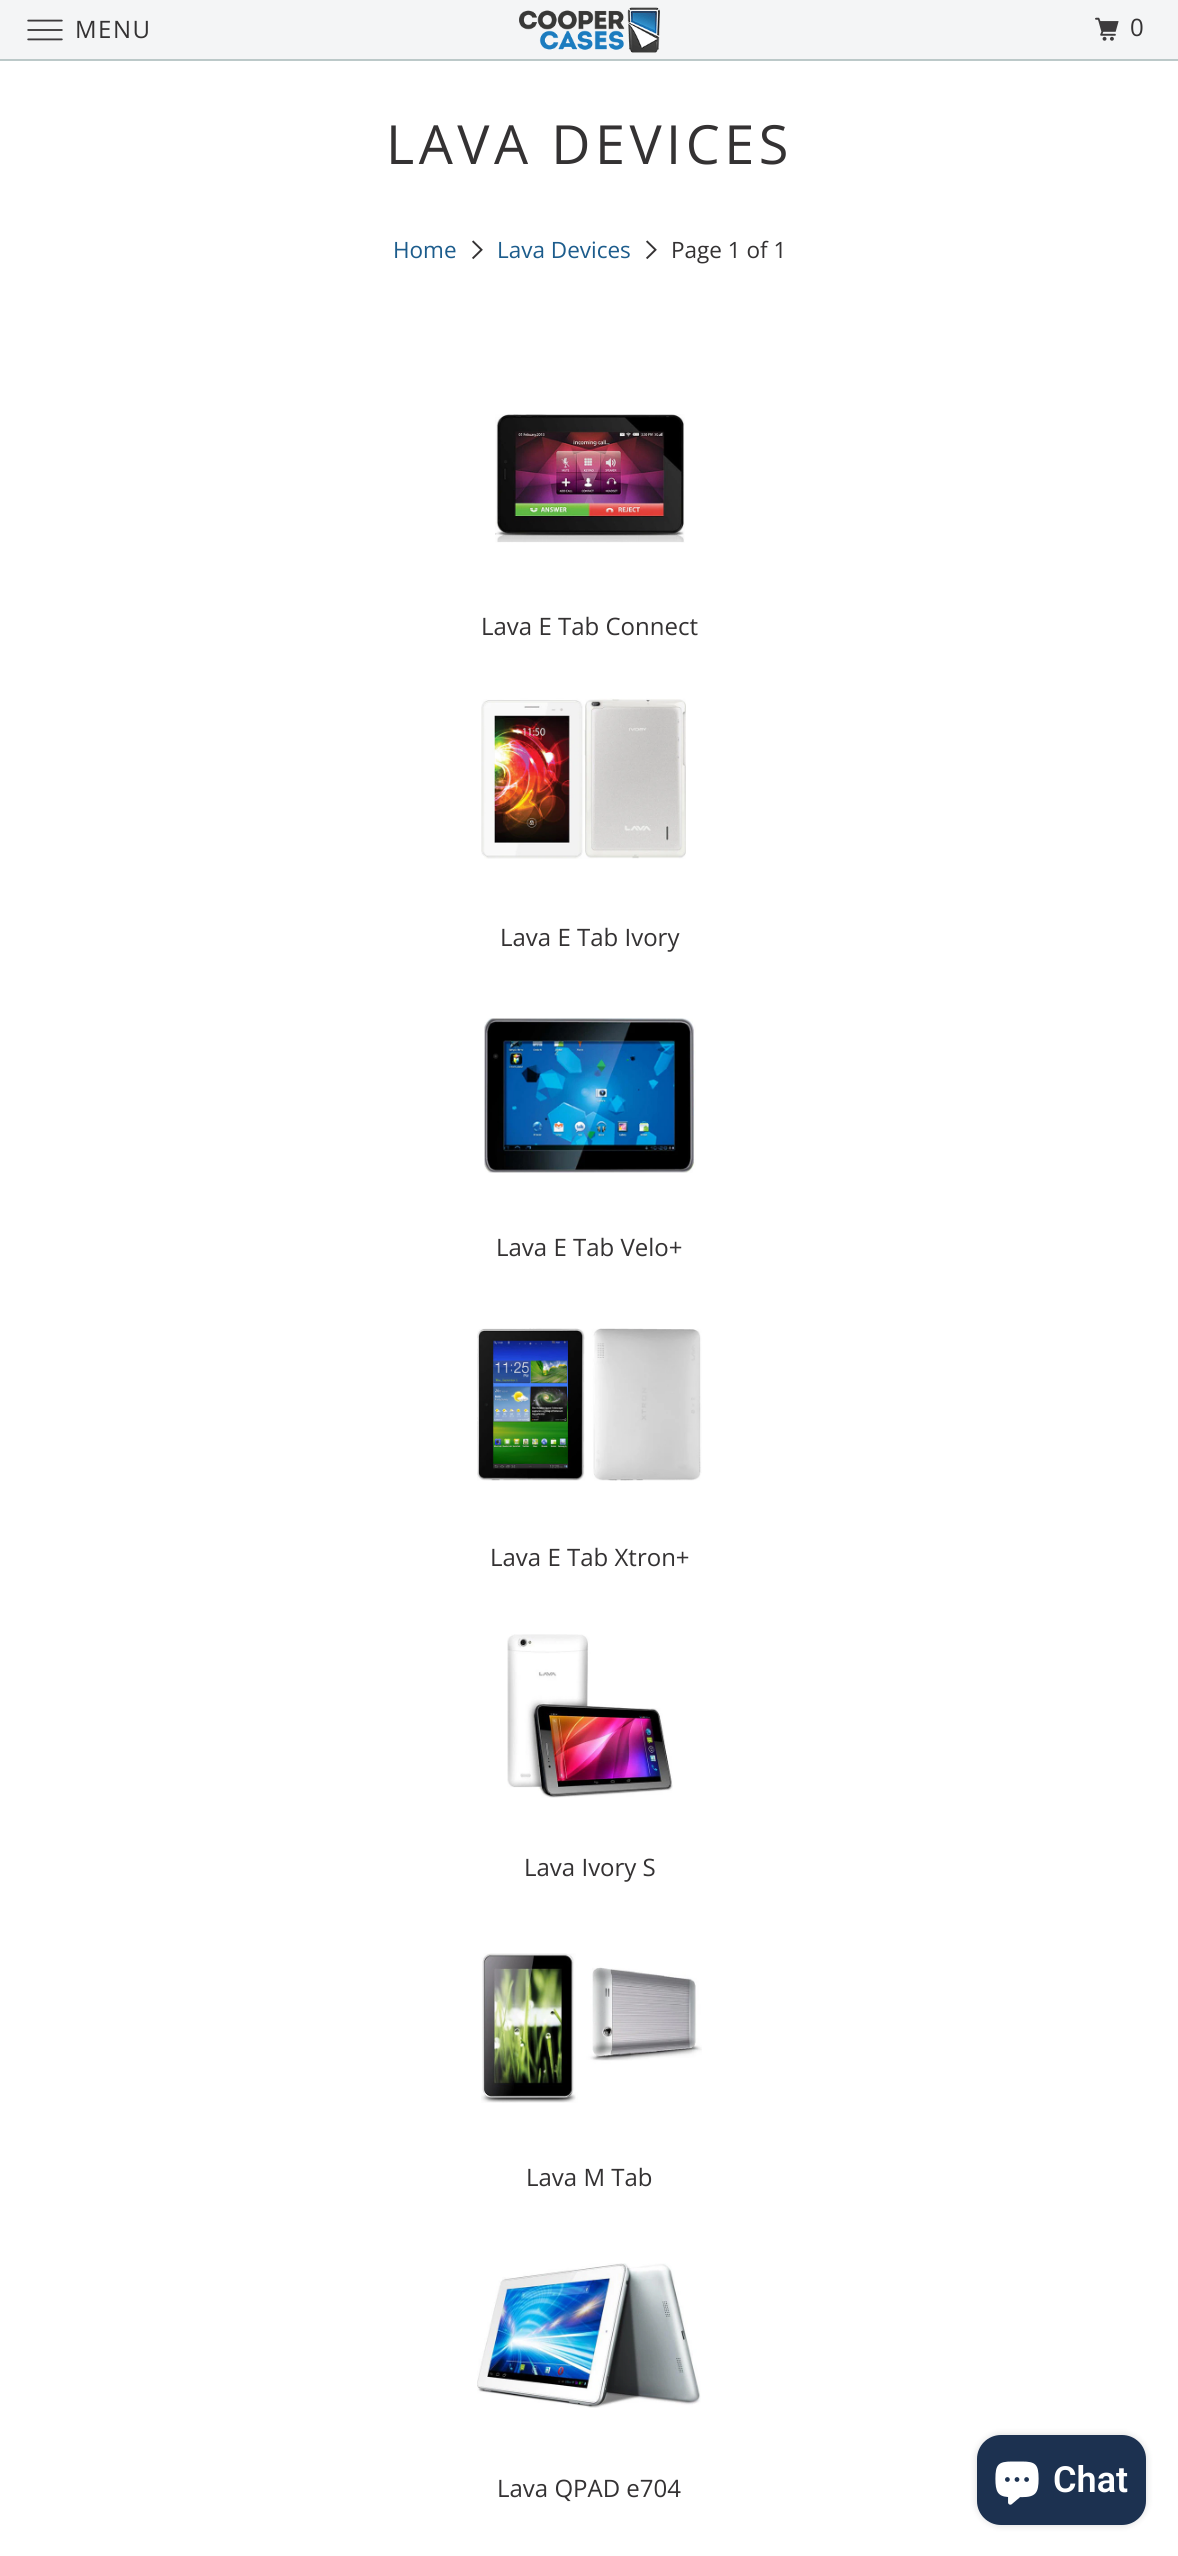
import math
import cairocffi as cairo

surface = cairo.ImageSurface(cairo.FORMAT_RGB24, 1178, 2556)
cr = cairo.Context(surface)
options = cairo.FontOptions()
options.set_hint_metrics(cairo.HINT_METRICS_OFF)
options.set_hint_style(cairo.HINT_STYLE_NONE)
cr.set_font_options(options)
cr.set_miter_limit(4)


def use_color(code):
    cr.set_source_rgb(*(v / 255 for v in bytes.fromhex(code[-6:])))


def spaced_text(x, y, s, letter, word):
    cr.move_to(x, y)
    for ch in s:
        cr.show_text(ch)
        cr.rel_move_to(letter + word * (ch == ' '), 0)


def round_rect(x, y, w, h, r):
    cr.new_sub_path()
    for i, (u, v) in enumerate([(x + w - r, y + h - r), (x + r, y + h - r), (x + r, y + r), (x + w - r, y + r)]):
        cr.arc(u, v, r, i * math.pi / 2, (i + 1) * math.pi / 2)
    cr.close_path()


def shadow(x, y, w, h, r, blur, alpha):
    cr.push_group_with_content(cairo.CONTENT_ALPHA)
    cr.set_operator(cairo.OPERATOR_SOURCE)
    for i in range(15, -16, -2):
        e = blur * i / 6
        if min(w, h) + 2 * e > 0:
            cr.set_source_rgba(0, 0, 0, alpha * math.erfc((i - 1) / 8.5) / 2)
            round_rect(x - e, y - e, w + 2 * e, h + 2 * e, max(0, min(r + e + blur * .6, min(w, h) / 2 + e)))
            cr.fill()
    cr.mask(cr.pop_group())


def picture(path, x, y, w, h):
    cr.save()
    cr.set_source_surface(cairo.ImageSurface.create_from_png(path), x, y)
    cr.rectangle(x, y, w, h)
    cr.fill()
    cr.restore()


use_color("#ffffff")
cr.paint()
use_color("#f4f5f6")
cr.rectangle(0, 0, 1178, 59)
cr.fill()
use_color("#bbc8c8")
cr.rectangle(0, 59, 1178, 1)
cr.fill()
picture("img1.png", 27, 19, 36, 22)
cr.select_font_face("Open Sans")
cr.set_font_size(24)
use_color("#343233")
spaced_text(75, 38, "MENU", 1.5, 0)
picture("img2.png", 519, 7, 141, 46)
picture("img3.png", 1095, 17, 24, 24)
spaced_text(1130, 36, "0", 1.5, 0)
use_color("#bcc9c9")
cr.rectangle(0, 60, 1178, 1)
cr.fill()
cr.set_font_size(54)
use_color("#343233")
spaced_text(386, 164, "LAVA DEVICES", 4.5, 0)
cr.set_font_size(22.5)
use_color("#1c5c8c")
cr.move_to(393, 258)
cr.show_text("Home")
picture("img4.png", 472, 240, 11, 20)
cr.move_to(497, 258)
cr.show_text("Lava Devices")
picture("img4.png", 646, 240, 11, 20)
use_color("#343233")
cr.move_to(671, 258)
cr.show_text("Page 1 of 1")
picture("img5.png", 495, 414, 190, 129)
cr.set_font_size(24)
cr.move_to(481, 635)
cr.show_text("Lava E Tab Connect")
picture("img6.png", 481, 698, 205, 161)
cr.move_to(500, 946)
cr.show_text("Lava E Tab Ivory")
picture("img7.png", 484, 1018, 212, 155)
cr.move_to(496, 1256)
cr.show_text("Lava E Tab Velo+")
picture("img8.png", 477, 1328, 225, 153)
cr.move_to(490, 1566)
cr.show_text("Lava E Tab Xtron+")
picture("img9.png", 507, 1634, 166, 164)
cr.move_to(524, 1876)
cr.show_text("Lava Ivory S")
picture("img10.png", 481, 1953, 221, 150)
cr.move_to(526, 2186)
cr.show_text("Lava M Tab")
picture("img11.png", 477, 2263, 224, 145)
cr.move_to(497, 2497)
cr.show_text("Lava QPAD e704")
use_color("#000000")
shadow(977, 2435, 169, 90, 24, 4, 0.15)
use_color("#1c3150")
round_rect(977, 2435, 169, 90, 24)
cr.fill()
picture("img12.png", 995, 2461, 44, 44)
cr.select_font_face("Roboto SemiBold")
cr.set_font_size(36)
use_color("#ffffff")
cr.move_to(1053, 2492)
cr.show_text("Chat")
surface.write_to_png("result.png")
